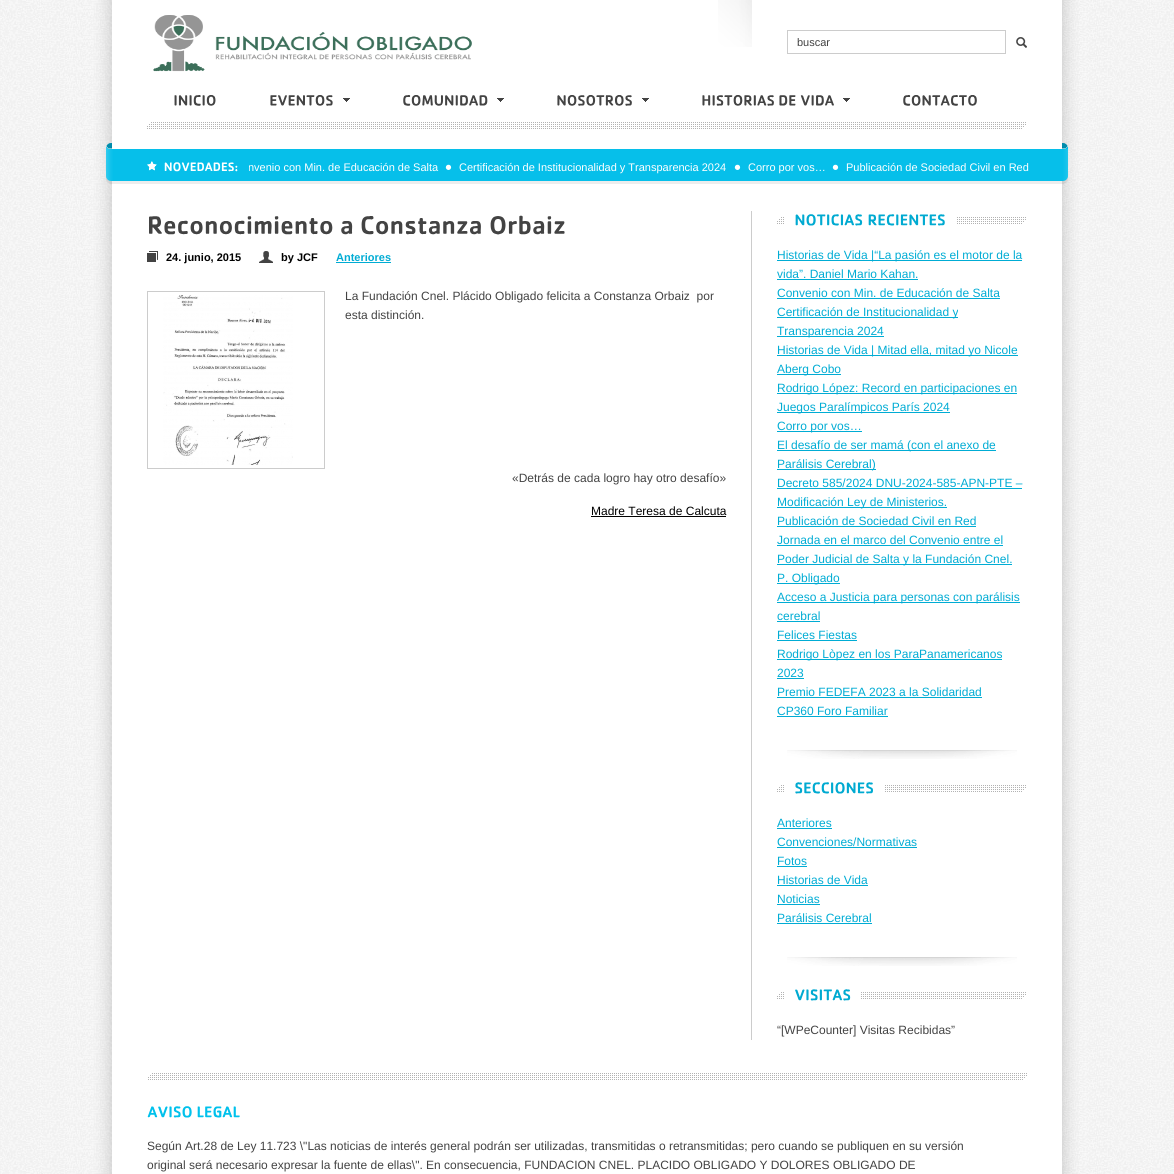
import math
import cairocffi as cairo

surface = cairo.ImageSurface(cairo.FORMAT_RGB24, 1174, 1174)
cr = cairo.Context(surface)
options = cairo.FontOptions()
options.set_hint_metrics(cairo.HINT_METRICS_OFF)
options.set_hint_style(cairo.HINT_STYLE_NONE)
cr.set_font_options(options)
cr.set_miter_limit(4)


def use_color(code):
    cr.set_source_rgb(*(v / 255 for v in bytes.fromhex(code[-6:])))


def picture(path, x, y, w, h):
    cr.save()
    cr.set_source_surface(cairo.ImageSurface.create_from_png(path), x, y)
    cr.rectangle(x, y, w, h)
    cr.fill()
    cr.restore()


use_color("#ffffff")
cr.paint()
picture("img1.png", 0, 0, 1174, 1174)
picture("img2.png", 153, 15, 319, 57)
picture("img3.png", 718, 0, 34, 47)
cr.rectangle(787.5, 30.5, 218, 23)
use_color("#cccccc")
cr.set_line_width(1)
cr.stroke()
cr.select_font_face("Liberation Sans")
cr.set_font_size(11)
use_color("#434343")
cr.move_to(797, 46)
cr.show_text("buscar")
picture("img4.png", 1016, 37, 11, 11)
picture("img5.png", 147, 122, 879, 7)
picture("img6.png", 174, 95, 42, 11)
picture("img7.png", 343, 98, 7, 4)
picture("img8.png", 270, 95, 63, 11)
picture("img7.png", 497, 98, 7, 4)
picture("img9.png", 403, 95, 85, 11)
picture("img7.png", 642, 98, 7, 4)
picture("img10.png", 557, 95, 75, 11)
picture("img7.png", 843, 98, 7, 4)
picture("img11.png", 702, 95, 72, 11)
picture("img12.png", 779, 95, 17, 11)
picture("img13.png", 800, 95, 34, 11)
picture("img14.png", 903, 95, 74, 11)
picture("img15.png", 106, 143, 964, 41)
picture("img16.png", 147, 161, 10, 10)
picture("img17.png", 164, 162, 74, 10)
cr.save()
cr.rectangle(249, 158, 780, 16)
cr.clip()
use_color("#ffffff")
cr.move_to(248, 171)
cr.show_text("nvenio con Min. de Educación de Salta")
cr.restore()
picture("img18.png", 445, 164, 7, 6)
use_color("#ffffff")
cr.move_to(459, 171)
cr.show_text("Certificación de Institucionalidad y Transparencia 2024")
picture("img18.png", 734, 164, 7, 6)
cr.move_to(748, 171)
cr.show_text("Corro por vos…")
picture("img18.png", 832, 164, 7, 6)
cr.move_to(846, 171)
cr.show_text("Publicación de Sociedad Civil en Red")
use_color("#cccccc")
cr.rectangle(751, 211, 1, 829)
cr.fill()
picture("img19.png", 149, 216, 184, 19)
picture("img20.png", 341, 221, 12, 14)
picture("img21.png", 361, 216, 120, 19)
picture("img22.png", 490, 215, 75, 20)
picture("img23.png", 147, 251, 11, 11)
cr.select_font_face("Liberation Sans", cairo.FONT_SLANT_NORMAL, cairo.FONT_WEIGHT_BOLD)
use_color("#000000")
cr.move_to(166, 261)
cr.show_text("24. junio, 2015")
picture("img24.png", 259, 251, 14, 12)
cr.move_to(281, 261)
cr.show_text("by JCF")
use_color("#00acd4")
cr.move_to(336, 261)
cr.show_text("Anteriores")
cr.rectangle(336, 262, 55, 1)
cr.fill()
cr.rectangle(147.5, 291.5, 177, 177)
use_color("#cccccc")
cr.stroke()
picture("img25.png", 163, 295, 130, 170)
cr.select_font_face("Liberation Sans")
cr.set_font_size(12)
use_color("#434343")
cr.move_to(345, 300)
cr.show_text("La Fundación Cnel. Plácido Obligado felicita a Constanza Orbaiz  por")
cr.move_to(345, 319)
cr.show_text("esta distinción.")
cr.move_to(512, 482)
cr.show_text("«Detrás de cada logro hay otro desafío»")
use_color("#000000")
cr.move_to(591, 515)
cr.show_text("Madre Teresa de Calcuta")
cr.rectangle(591, 516, 135, 1)
cr.fill()
picture("img26.png", 787, 750, 230, 9)
picture("img27.png", 777, 217, 249, 7)
use_color("#ffffff")
cr.rectangle(785, 217, 81, 7)
cr.fill()
cr.rectangle(867, 217, 89, 7)
cr.fill()
picture("img28.png", 795, 214, 68, 12)
picture("img29.png", 868, 214, 77, 12)
use_color("#00acd4")
cr.rectangle(777, 260, 245, 1)
cr.fill()
cr.move_to(777, 259)
cr.show_text("Historias de Vida |“La pasión es el motor de la")
cr.move_to(777, 278)
cr.show_text("vida”. Daniel Mario Kahan.")
cr.rectangle(777, 279, 141, 1)
cr.fill()
cr.move_to(777, 297)
cr.show_text("Convenio con Min. de Educación de Salta")
cr.rectangle(777, 298, 223, 1)
cr.fill()
cr.rectangle(777, 317, 181, 1)
cr.fill()
cr.move_to(777, 316)
cr.show_text("Certificación de Institucionalidad y")
cr.rectangle(777, 336, 107, 1)
cr.fill()
cr.move_to(777, 335)
cr.show_text("Transparencia 2024")
cr.rectangle(777, 355, 241, 1)
cr.fill()
cr.move_to(777, 354)
cr.show_text("Historias de Vida | Mitad ella, mitad yo Nicole")
cr.rectangle(777, 374, 64, 1)
cr.fill()
cr.move_to(777, 373)
cr.show_text("Aberg Cobo")
cr.rectangle(777, 393, 240, 1)
cr.fill()
cr.move_to(777, 392)
cr.show_text("Rodrigo López: Record en participaciones en")
cr.rectangle(777, 412, 173, 1)
cr.fill()
cr.move_to(777, 411)
cr.show_text("Juegos Paralímpicos París 2024")
cr.rectangle(777, 431, 85, 1)
cr.fill()
cr.move_to(777, 430)
cr.show_text("Corro por vos…")
cr.rectangle(777, 450, 219, 1)
cr.fill()
cr.move_to(777, 449)
cr.show_text("El desafío de ser mamá (con el anexo de")
cr.rectangle(777, 469, 99, 1)
cr.fill()
cr.move_to(777, 468)
cr.show_text("Parálisis Cerebral)")
cr.move_to(777, 487)
cr.show_text("Decreto 585/2024 DNU-2024-585-APN-PTE –")
cr.rectangle(777, 488, 245, 1)
cr.fill()
cr.rectangle(777, 507, 170, 1)
cr.fill()
cr.move_to(777, 506)
cr.show_text("Modificación Ley de Ministerios.")
cr.move_to(777, 525)
cr.show_text("Publicación de Sociedad Civil en Red")
cr.rectangle(777, 526, 199, 1)
cr.fill()
cr.move_to(777, 544)
cr.show_text("Jornada en el marco del Convenio entre el")
cr.rectangle(777, 545, 226, 1)
cr.fill()
cr.rectangle(777, 564, 235, 1)
cr.fill()
cr.move_to(777, 563)
cr.show_text("Poder Judicial de Salta y la Fundación Cnel.")
cr.rectangle(777, 583, 63, 1)
cr.fill()
cr.move_to(777, 582)
cr.show_text("P. Obligado")
cr.rectangle(777, 602, 243, 1)
cr.fill()
cr.move_to(777, 601)
cr.show_text("Acceso a Justicia para personas con parálisis")
cr.move_to(777, 620)
cr.show_text("cerebral")
cr.rectangle(777, 621, 43, 1)
cr.fill()
cr.move_to(777, 639)
cr.show_text("Felices Fiestas")
cr.rectangle(777, 640, 80, 1)
cr.fill()
cr.rectangle(777, 659, 225, 1)
cr.fill()
cr.move_to(777, 658)
cr.show_text("Rodrigo Lòpez en los ParaPanamericanos")
cr.move_to(777, 677)
cr.show_text("2023")
cr.rectangle(777, 678, 27, 1)
cr.fill()
cr.move_to(777, 696)
cr.show_text("Premio FEDEFA 2023 a la Solidaridad")
cr.rectangle(777, 697, 205, 1)
cr.fill()
cr.move_to(777, 715)
cr.show_text("CP360 Foro Familiar")
cr.rectangle(777, 716, 111, 1)
cr.fill()
picture("img26.png", 787, 957, 230, 9)
picture("img27.png", 777, 785, 249, 7)
use_color("#ffffff")
cr.rectangle(785, 785, 99, 7)
cr.fill()
picture("img30.png", 795, 782, 78, 12)
use_color("#00acd4")
cr.move_to(777, 827)
cr.show_text("Anteriores")
cr.rectangle(777, 828, 55, 1)
cr.fill()
cr.move_to(777, 846)
cr.show_text("Convenciones/Normativas")
cr.rectangle(777, 847, 140, 1)
cr.fill()
cr.move_to(777, 865)
cr.show_text("Fotos")
cr.rectangle(777, 866, 30, 1)
cr.fill()
cr.move_to(777, 884)
cr.show_text("Historias de Vida")
cr.rectangle(777, 885, 91, 1)
cr.fill()
cr.move_to(777, 903)
cr.show_text("Noticias")
cr.rectangle(777, 904, 43, 1)
cr.fill()
cr.move_to(777, 922)
cr.show_text("Parálisis Cerebral")
cr.rectangle(777, 923, 95, 1)
cr.fill()
picture("img27.png", 777, 992, 249, 7)
use_color("#ffffff")
cr.rectangle(785, 992, 75, 7)
cr.fill()
picture("img31.png", 795, 989, 56, 12)
use_color("#434343")
cr.move_to(777, 1034)
cr.show_text("“[WPeCounter] Visitas Recibidas”")
picture("img5.png", 148, 1073, 879, 7)
picture("img32.png", 147, 1106, 45, 12)
picture("img33.png", 197, 1106, 43, 12)
cr.move_to(147, 1150)
cr.show_text("Según Art.28 de Ley 11.723 \\\"Las noticias de interés general podrán ser utilizadas, transmitidas o retransmitidas; pero cuando se publiquen en su versión")
cr.move_to(147, 1169)
cr.show_text("original será necesario expresar la fuente de ellas\\\". En consecuencia, FUNDACION CNEL. PLACIDO OBLIGADO Y DOLORES OBLIGADO DE")
surface.write_to_png("result.png")
